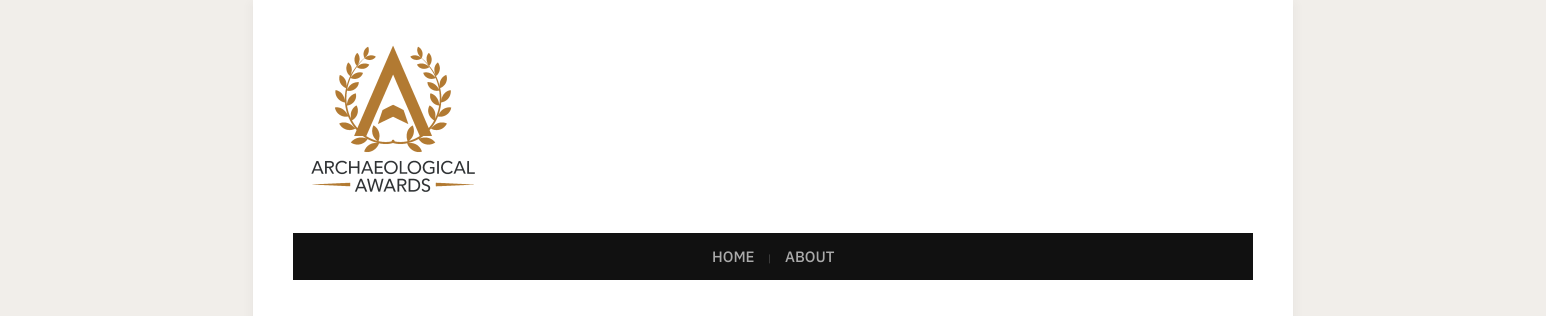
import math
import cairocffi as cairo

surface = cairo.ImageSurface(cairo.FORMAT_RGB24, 1546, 316)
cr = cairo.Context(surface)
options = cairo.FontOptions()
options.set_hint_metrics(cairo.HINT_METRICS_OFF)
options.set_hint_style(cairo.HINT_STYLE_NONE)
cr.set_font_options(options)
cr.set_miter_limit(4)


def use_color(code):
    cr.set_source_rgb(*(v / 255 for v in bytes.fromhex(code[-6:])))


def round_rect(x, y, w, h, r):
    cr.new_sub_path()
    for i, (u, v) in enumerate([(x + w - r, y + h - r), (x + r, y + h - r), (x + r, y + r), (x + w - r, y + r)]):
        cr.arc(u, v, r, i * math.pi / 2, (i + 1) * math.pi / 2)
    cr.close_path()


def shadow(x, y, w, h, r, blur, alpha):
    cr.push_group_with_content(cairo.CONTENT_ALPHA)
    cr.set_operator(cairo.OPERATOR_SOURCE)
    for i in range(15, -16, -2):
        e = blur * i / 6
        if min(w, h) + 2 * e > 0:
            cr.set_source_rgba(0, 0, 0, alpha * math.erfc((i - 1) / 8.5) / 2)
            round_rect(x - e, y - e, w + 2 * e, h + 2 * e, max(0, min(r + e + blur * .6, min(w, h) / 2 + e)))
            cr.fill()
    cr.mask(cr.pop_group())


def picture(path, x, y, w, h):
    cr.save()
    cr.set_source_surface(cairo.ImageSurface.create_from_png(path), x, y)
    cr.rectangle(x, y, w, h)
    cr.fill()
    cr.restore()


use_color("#f1eeea")
cr.paint()
use_color("#000000")
shadow(253, 5, 1040, 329, 0, 6, 0.05)
use_color("#ffffff")
cr.rectangle(253, 0, 1040, 316)
cr.fill()
picture("img1.png", 311, 45, 164, 147)
use_color("#111111")
cr.rectangle(293, 233, 960, 47)
cr.fill()
cr.select_font_face("IBM Plex Sans Medium")
cr.set_font_size(15)
use_color("#aaaaaa")
cr.move_to(712, 262)
cr.show_text("HOME")
cr.select_font_face("IBM Plex Sans")
cr.set_font_size(10)
use_color("#4d4d4d")
cr.move_to(768, 262)
cr.show_text("|")
cr.select_font_face("IBM Plex Sans Medium")
cr.set_font_size(15)
use_color("#aaaaaa")
cr.move_to(785, 262)
cr.show_text("ABOUT")
surface.write_to_png("result.png")
